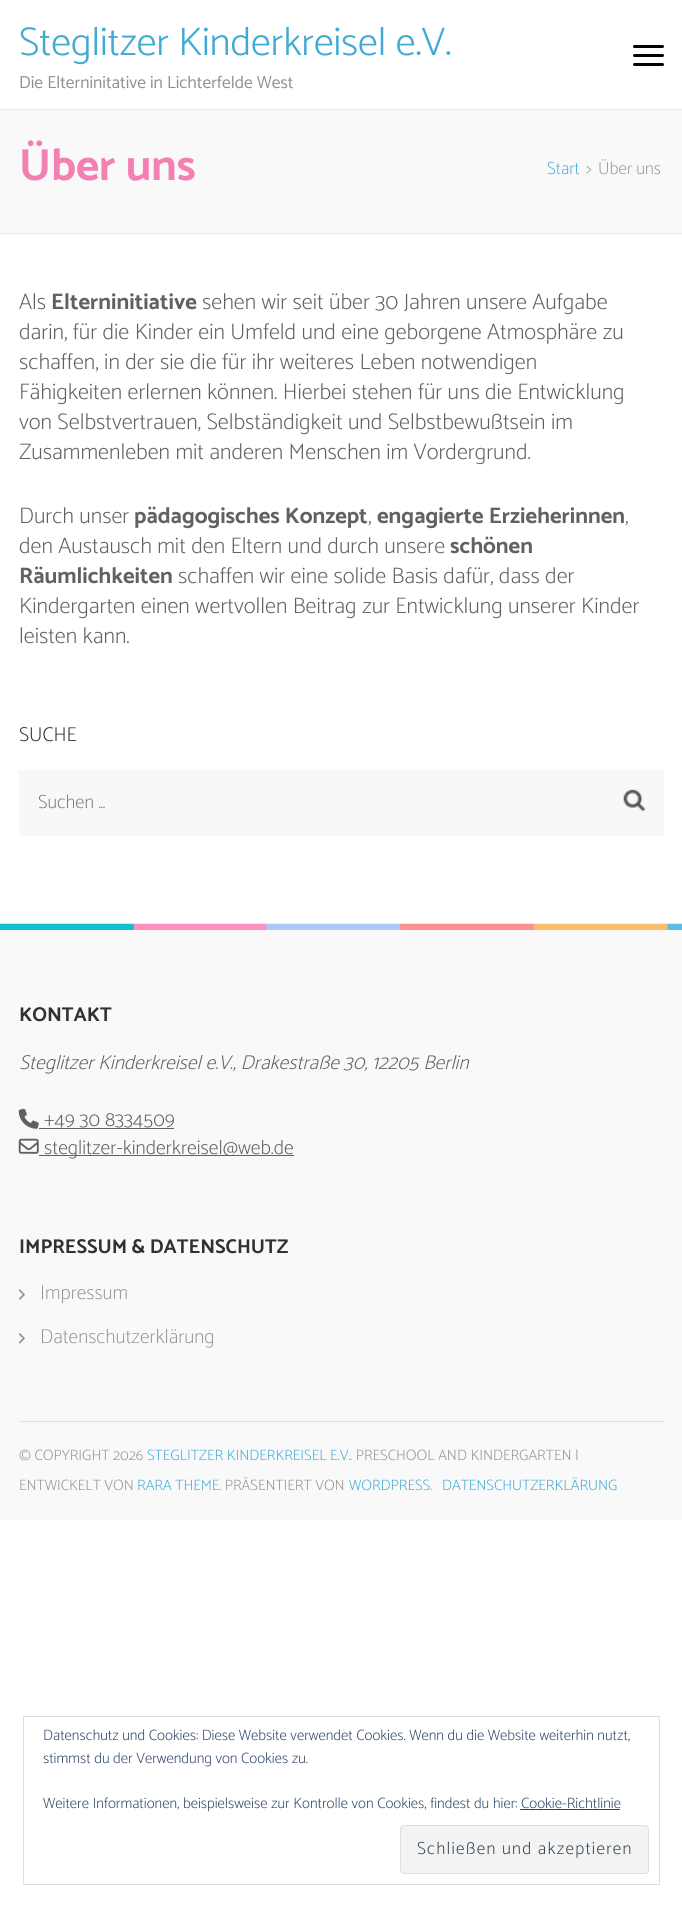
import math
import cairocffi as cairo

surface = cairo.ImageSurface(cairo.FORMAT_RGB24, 682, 1907)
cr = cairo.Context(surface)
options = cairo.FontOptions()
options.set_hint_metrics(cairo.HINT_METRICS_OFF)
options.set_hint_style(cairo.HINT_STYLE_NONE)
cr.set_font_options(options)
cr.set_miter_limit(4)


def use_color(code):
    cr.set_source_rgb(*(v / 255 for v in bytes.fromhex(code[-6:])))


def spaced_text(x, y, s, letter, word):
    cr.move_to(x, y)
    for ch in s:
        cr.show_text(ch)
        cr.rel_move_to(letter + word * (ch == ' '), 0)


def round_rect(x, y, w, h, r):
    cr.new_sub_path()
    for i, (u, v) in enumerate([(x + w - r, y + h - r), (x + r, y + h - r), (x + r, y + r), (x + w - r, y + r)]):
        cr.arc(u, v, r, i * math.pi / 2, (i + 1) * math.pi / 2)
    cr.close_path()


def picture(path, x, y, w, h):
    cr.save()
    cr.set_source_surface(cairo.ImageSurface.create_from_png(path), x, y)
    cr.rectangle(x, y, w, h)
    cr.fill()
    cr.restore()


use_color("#ffffff")
cr.paint()
cr.select_font_face("Catamaran Light")
cr.set_font_size(40)
use_color("#41aad4")
cr.move_to(19, 55)
cr.show_text("Steglitzer Kinderkreisel e.V.")
cr.select_font_face("Catamaran")
cr.set_font_size(17.5)
use_color("#919191")
cr.move_to(19, 88)
cr.show_text("Die Elterninitative in Lichterfelde West")
use_color("#000000")
round_rect(633, 45, 31, 3, 1.5)
cr.fill()
round_rect(633, 54, 31, 3, 1.5)
cr.fill()
round_rect(633, 63, 31, 3, 1.5)
cr.fill()
use_color("#f9f9f9")
cr.rectangle(0, 110, 682, 123)
cr.fill()
use_color("#e9e9e9")
cr.rectangle(0, 109, 682, 1)
cr.fill()
cr.rectangle(0, 233, 682, 1)
cr.fill()
cr.select_font_face("Catamaran", cairo.FONT_SLANT_NORMAL, cairo.FONT_WEIGHT_BOLD)
cr.set_font_size(45)
use_color("#f380b2")
cr.move_to(19, 180)
cr.show_text("Über uns")
cr.select_font_face("Catamaran Thin")
cr.set_font_size(17.5)
use_color("#41aad4")
cr.move_to(547, 174)
cr.show_text("Start")
use_color("#919191")
cr.move_to(586, 174)
cr.show_text(">")
cr.move_to(598, 174)
cr.show_text("Über uns")
cr.select_font_face("Catamaran ExtraLight")
cr.set_font_size(22.5)
use_color("#616161")
cr.move_to(19, 309)
cr.show_text("Als")
cr.select_font_face("Catamaran", cairo.FONT_SLANT_NORMAL, cairo.FONT_WEIGHT_BOLD)
cr.move_to(51, 309)
cr.show_text("Elterninitiative")
cr.select_font_face("Catamaran ExtraLight")
cr.move_to(202, 309)
cr.show_text("sehen wir seit über 30 Jahren unsere Aufgabe")
cr.move_to(19, 339)
cr.show_text("darin, für die Kinder ein Umfeld und eine geborgene Atmosphäre zu")
cr.move_to(19, 369)
cr.show_text("schaffen, in der sie die für ihr weiteres Leben notwendigen")
cr.move_to(19, 399)
cr.show_text("Fähigkeiten erlernen können. Hierbei stehen für uns die Entwicklung")
cr.move_to(19, 429)
cr.show_text("von Selbstvertrauen, Selbständigkeit und Selbstbewußtsein im")
cr.move_to(19, 459)
cr.show_text("Zusammenleben mit anderen Menschen im Vordergrund.")
cr.move_to(19, 523)
cr.show_text("Durch unser")
cr.select_font_face("Catamaran", cairo.FONT_SLANT_NORMAL, cairo.FONT_WEIGHT_BOLD)
cr.move_to(134, 523)
cr.show_text("pädagogisches Konzept")
cr.select_font_face("Catamaran ExtraLight")
cr.move_to(368, 523)
cr.show_text(",")
cr.select_font_face("Catamaran", cairo.FONT_SLANT_NORMAL, cairo.FONT_WEIGHT_BOLD)
cr.move_to(377, 523)
cr.show_text("engagierte Erzieherinnen")
cr.select_font_face("Catamaran ExtraLight")
cr.move_to(625, 523)
cr.show_text(",")
cr.move_to(19, 553)
cr.show_text("den Austausch mit den Eltern und durch unsere")
cr.select_font_face("Catamaran", cairo.FONT_SLANT_NORMAL, cairo.FONT_WEIGHT_BOLD)
cr.move_to(450, 553)
cr.show_text("schönen")
cr.move_to(19, 583)
cr.show_text("Räumlichkeiten")
cr.select_font_face("Catamaran ExtraLight")
cr.move_to(178, 583)
cr.show_text("schaffen wir eine solide Basis dafür, dass der")
cr.move_to(19, 613)
cr.show_text("Kindergarten einen wertvollen Beitrag zur Entwicklung unserer Kinder")
cr.move_to(19, 643)
cr.show_text("leisten kann.")
cr.set_font_size(20)
use_color("#313131")
cr.move_to(19, 741)
cr.show_text("SUCHE")
use_color("#f8f8f8")
cr.rectangle(19, 770, 645, 66)
cr.fill()
cr.select_font_face("Catamaran Thin")
cr.set_font_size(19)
use_color("#757575")
cr.move_to(38, 808)
cr.show_text("Suchen …")
picture("img1.png", 623, 788, 22, 24)
use_color("#f9f9f9")
cr.rectangle(0, 930, 682, 590)
cr.fill()
picture("img2.png", 0, 923, 682, 7)
use_color("#e0e0e0")
cr.rectangle(19, 1421, 645, 1)
cr.fill()
cr.select_font_face("Catamaran", cairo.FONT_SLANT_NORMAL, cairo.FONT_WEIGHT_BOLD)
cr.set_font_size(20)
use_color("#313131")
cr.move_to(19, 1021)
cr.show_text("KONTAKT")
cr.select_font_face("Catamaran ExtraLight", cairo.FONT_SLANT_ITALIC)
use_color("#616161")
cr.move_to(19, 1069)
cr.show_text("Steglitzer Kinderkreisel e.V., Drakestraße 30, 12205 Berlin")
picture("img3.png", 18, 1108, 21, 21)
cr.select_font_face("Catamaran ExtraLight")
cr.move_to(44, 1126)
cr.show_text("+49 30 8334509")
cr.rectangle(39, 1128, 135, 1)
cr.fill()
picture("img4.png", 18, 1138, 21, 16)
cr.rectangle(39, 1155, 255, 1)
cr.fill()
cr.move_to(44, 1154)
cr.show_text("steglitzer-kinderkreisel@web.de")
cr.select_font_face("Catamaran", cairo.FONT_SLANT_NORMAL, cairo.FONT_WEIGHT_BOLD)
use_color("#313131")
cr.move_to(19, 1253)
cr.show_text("IMPRESSUM & DATENSCHUTZ")
picture("img5.png", 19, 1289, 6, 11)
cr.select_font_face("Catamaran Thin")
use_color("#919191")
cr.move_to(40, 1299)
cr.show_text("Impressum")
picture("img6.png", 19, 1333, 6, 11)
cr.move_to(40, 1343)
cr.show_text("Datenschutzerklärung")
cr.select_font_face("Catamaran ExtraLight")
cr.set_font_size(15)
cr.move_to(19, 1460)
cr.show_text("© COPYRIGHT 2026")
use_color("#41aad4")
cr.move_to(147, 1460)
cr.show_text("STEGLITZER KINDERKREISEL E.V.")
use_color("#919191")
cr.move_to(350, 1460)
cr.show_text(". PRESCHOOL AND KINDERGARTEN |")
cr.move_to(19, 1490)
cr.show_text("ENTWICKELT VON")
use_color("#41aad4")
cr.move_to(137, 1490)
cr.show_text("RARA THEME")
use_color("#919191")
cr.move_to(219, 1490)
cr.show_text(". PRÄSENTIERT VON")
use_color("#41aad4")
cr.move_to(349, 1490)
cr.show_text("WORDPRESS.")
cr.move_to(442, 1490)
cr.show_text("DATENSCHUTZERKLÄRUNG")
cr.rectangle(23.5, 1716.5, 636, 168)
use_color("#dedede")
cr.set_line_width(1)
cr.stroke()
use_color("#2e4467")
cr.move_to(43, 1740)
cr.show_text("Datenschutz und Cookies: Diese Website verwendet Cookies. Wenn du die Website weiterhin nutzt,")
cr.move_to(43, 1763)
cr.show_text("stimmst du der Verwendung von Cookies zu.")
cr.move_to(43, 1808)
cr.show_text("Weitere Informationen, beispielsweise zur Kontrolle von Cookies, findest du hier: Cookie-Richtlinie")
cr.rectangle(520, 1809, 100, 1)
cr.fill()
use_color("#f3f3f3")
round_rect(400.5, 1825.5, 248, 48, 3.5)
cr.fill_preserve()
use_color("#dedede")
cr.stroke()
cr.set_font_size(17.5)
use_color("#2e4453")
spaced_text(417, 1854, "Schließen und akzeptieren", 1.25, 0)
surface.write_to_png("result.png")
